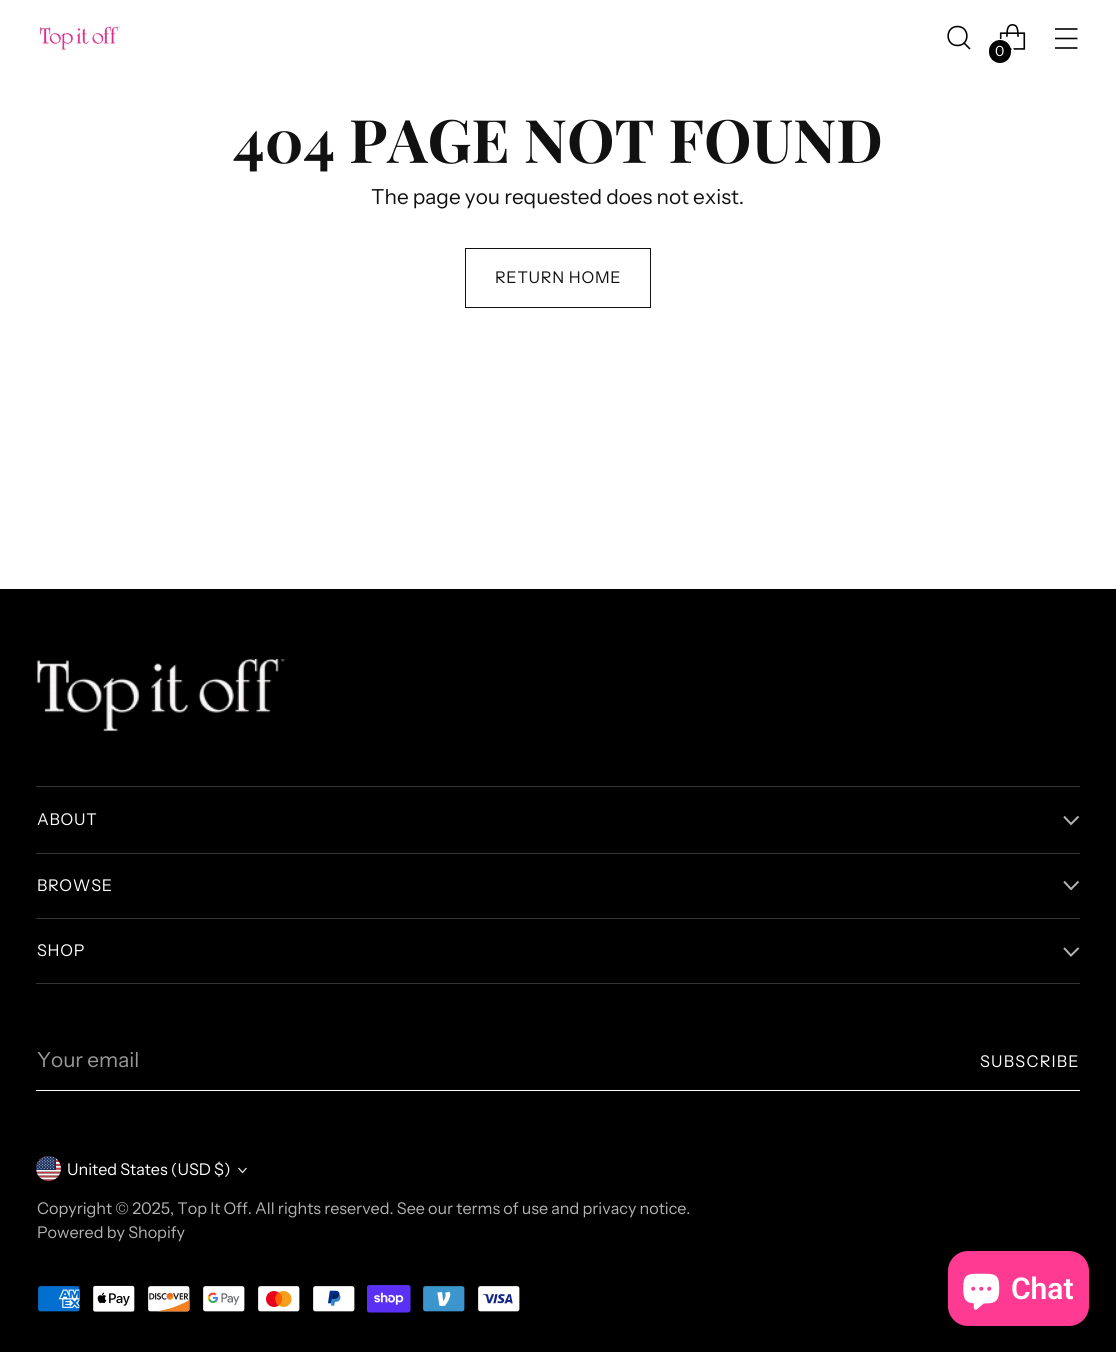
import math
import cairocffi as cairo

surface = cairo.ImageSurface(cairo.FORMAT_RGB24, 1116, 1352)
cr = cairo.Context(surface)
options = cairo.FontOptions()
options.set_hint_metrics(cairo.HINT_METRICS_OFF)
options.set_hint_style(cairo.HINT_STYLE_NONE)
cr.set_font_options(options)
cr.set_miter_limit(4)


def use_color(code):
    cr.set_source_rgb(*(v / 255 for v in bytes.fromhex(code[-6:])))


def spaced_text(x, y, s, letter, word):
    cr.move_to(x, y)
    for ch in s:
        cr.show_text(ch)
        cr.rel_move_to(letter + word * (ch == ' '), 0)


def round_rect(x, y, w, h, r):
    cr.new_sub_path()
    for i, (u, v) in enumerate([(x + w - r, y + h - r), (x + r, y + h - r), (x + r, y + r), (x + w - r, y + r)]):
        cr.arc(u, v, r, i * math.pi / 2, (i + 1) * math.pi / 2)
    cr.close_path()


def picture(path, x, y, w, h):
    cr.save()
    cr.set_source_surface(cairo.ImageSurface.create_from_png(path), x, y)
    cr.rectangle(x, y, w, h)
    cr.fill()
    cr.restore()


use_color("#ffffff")
cr.paint()
picture("img1.png", 37, 25, 83, 26)
cr.new_path()
cr.move_to(957.5, 45.5)
cr.curve_to(970, 45.5, 970, 26.5, 957.5, 26.5)
cr.curve_to(945, 26.5, 945, 45.5, 957.5, 45.5)
cr.close_path()
use_color("#000000")
cr.set_line_width(1.6)
cr.set_line_cap(cairo.LINE_CAP_ROUND)
cr.stroke()
cr.new_path()
cr.move_to(964, 43)
cr.line_to(970, 49)
cr.set_line_cap(cairo.LINE_CAP_BUTT)
cr.stroke()
cr.new_path()
cr.move_to(1055, 38.5)
cr.line_to(1077.5, 38.5)
cr.move_to(1055, 29)
cr.line_to(1077.5, 29)
cr.move_to(1055, 48)
cr.line_to(1077.5, 48)
cr.stroke()
picture("img2.png", 999, 24, 27, 26)
cr.arc(1001, 52, 12, 0, 2 * math.pi)
use_color("#ffffff")
cr.set_line_width(2)
cr.stroke()
use_color("#000000")
round_rect(989, 40, 22, 23, 11)
cr.fill()
cr.select_font_face("Instrument Sans")
cr.set_font_size(14)
use_color("#ffffff")
cr.move_to(995, 56)
cr.show_text("0")
cr.select_font_face("Playfair Display", cairo.FONT_SLANT_NORMAL, cairo.FONT_WEIGHT_BOLD)
cr.set_font_size(60)
use_color("#111111")
cr.move_to(233, 163)
cr.show_text("404 PAGE NOT FOUND")
cr.select_font_face("Instrument Sans")
cr.set_font_size(20.75)
cr.move_to(371, 204)
cr.show_text("The page you requested does not exist.")
cr.rectangle(465.5, 248.5, 185, 59)
cr.set_line_width(1)
cr.stroke()
cr.set_font_size(16.15)
spaced_text(495, 283, "RETURN HOME", 0.75, 0)
use_color("#000000")
cr.rectangle(0, 589, 1116, 763)
cr.fill()
use_color("#333333")
cr.rectangle(36, 786, 1044, 1)
cr.fill()
picture("img3.png", 36, 658, 249, 74)
cr.rectangle(36, 853, 1044, 1)
cr.fill()
use_color("#ffffff")
spaced_text(37, 825, "ABOUT", 0.75, 0)
cr.new_path()
cr.move_to(1064, 816.5)
cr.line_to(1071, 824)
cr.line_to(1078.5, 816.5)
use_color("#b3b3b3")
cr.set_line_width(2)
cr.stroke()
use_color("#333333")
cr.rectangle(36, 918, 1044, 1)
cr.fill()
use_color("#ffffff")
spaced_text(37, 891, "BROWSE", 0.75, 0)
cr.new_path()
cr.move_to(1064, 881.5)
cr.line_to(1071, 889)
cr.line_to(1078.5, 881.5)
use_color("#b3b3b3")
cr.stroke()
use_color("#333333")
cr.rectangle(36, 983, 1044, 1)
cr.fill()
use_color("#ffffff")
spaced_text(37, 956, "SHOP", 0.75, 0)
cr.new_path()
cr.move_to(1064, 948)
cr.line_to(1071, 955.5)
cr.line_to(1078.5, 948)
use_color("#b3b3b3")
cr.stroke()
use_color("#ffffff")
cr.rectangle(36, 1090, 1044, 1)
cr.fill()
cr.set_font_size(20.75)
use_color("#999999")
cr.move_to(37, 1067)
cr.show_text("Your email")
cr.set_font_size(16.15)
use_color("#ffffff")
spaced_text(980, 1067, "SUBSCRIBE", 1.25, 0)
picture("img4.png", 36, 1156, 25, 25)
cr.move_to(67, 1175)
cr.show_text("United States (USD $)")
cr.new_path()
cr.move_to(238.5, 1168)
cr.line_to(242.5, 1172.5)
cr.line_to(246.5, 1168)
cr.set_line_width(1.1)
cr.stroke()
use_color("#b3b3b3")
cr.move_to(37, 1214)
cr.show_text("Copyright © 2025, Top It Off. All rights reserved. See our terms of use and privacy notice.")
cr.move_to(37, 1238)
cr.show_text("Powered by Shopify")
picture("img5.png", 38, 1286, 42, 26)
picture("img6.png", 93, 1285, 42, 27)
picture("img7.png", 148, 1286, 42, 26)
picture("img8.png", 203, 1286, 42, 26)
picture("img9.png", 258, 1286, 42, 26)
picture("img10.png", 313, 1286, 42, 26)
picture("img11.png", 367, 1285, 44, 28)
picture("img12.png", 423, 1286, 42, 26)
picture("img13.png", 478, 1286, 42, 26)
use_color("#ff3a92")
round_rect(948, 1251, 141, 75, 20)
cr.fill()
picture("img14.png", 963, 1273, 37, 37)
cr.select_font_face("Roboto SemiBold")
cr.set_font_size(30)
use_color("#ffffff")
cr.move_to(1011, 1299)
cr.show_text("Chat")
surface.write_to_png("result.png")
